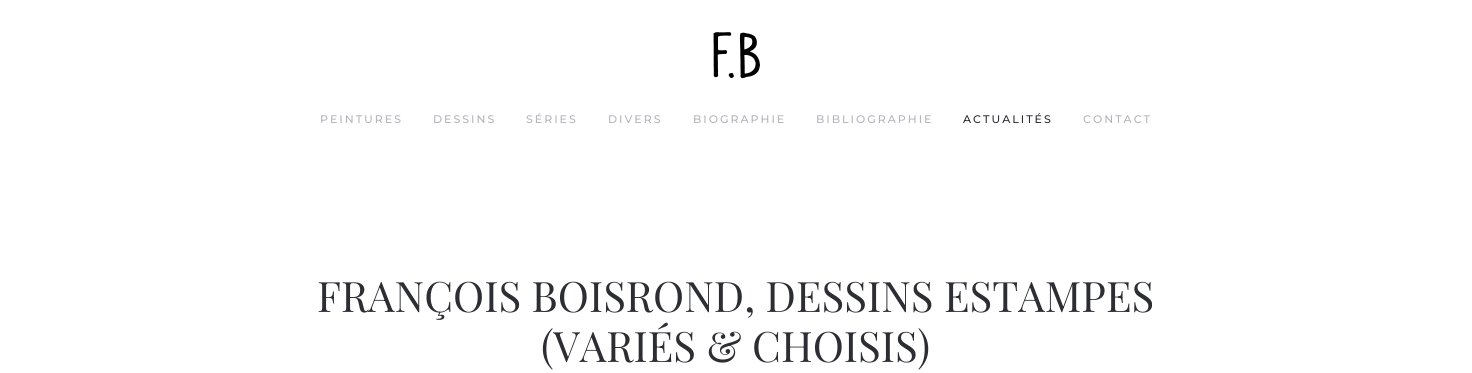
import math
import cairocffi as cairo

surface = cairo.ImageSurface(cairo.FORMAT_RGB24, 1472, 373)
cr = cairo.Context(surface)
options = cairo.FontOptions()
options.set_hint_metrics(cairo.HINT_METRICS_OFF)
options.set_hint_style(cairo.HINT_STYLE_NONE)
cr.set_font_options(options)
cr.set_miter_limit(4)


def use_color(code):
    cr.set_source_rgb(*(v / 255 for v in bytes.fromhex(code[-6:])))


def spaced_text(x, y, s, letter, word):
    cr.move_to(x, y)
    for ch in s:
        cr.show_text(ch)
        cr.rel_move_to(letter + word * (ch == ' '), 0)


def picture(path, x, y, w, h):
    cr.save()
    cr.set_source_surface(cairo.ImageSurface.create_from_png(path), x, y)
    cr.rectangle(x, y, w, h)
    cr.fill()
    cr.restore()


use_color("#ffffff")
cr.paint()
picture("img1.png", 713, 32, 47, 47)
cr.select_font_face("Montserrat Thin")
cr.set_font_size(11)
use_color("#b4b5ba")
spaced_text(320, 123, "PEINTURES", 2, 0)
spaced_text(433, 123, "DESSINS", 2, 0)
spaced_text(526, 123, "SÉRIES", 2, 0)
spaced_text(608, 123, "DIVERS", 2, 0)
spaced_text(693, 123, "BIOGRAPHIE", 2, 0)
spaced_text(816, 123, "BIBLIOGRAPHIE", 2, 0)
use_color("#2d2e33")
spaced_text(963, 123, "ACTUALITÉS", 2, 0)
use_color("#b4b5ba")
spaced_text(1083, 123, "CONTACT", 2, 0)
cr.select_font_face("Playfair Display")
cr.set_font_size(42)
use_color("#2d2e33")
cr.move_to(317, 312)
cr.show_text("FRANÇOIS BOISROND, DESSINS ESTAMPES")
cr.move_to(541, 362)
cr.show_text("(VARIÉS & CHOISIS)")
surface.write_to_png("result.png")
